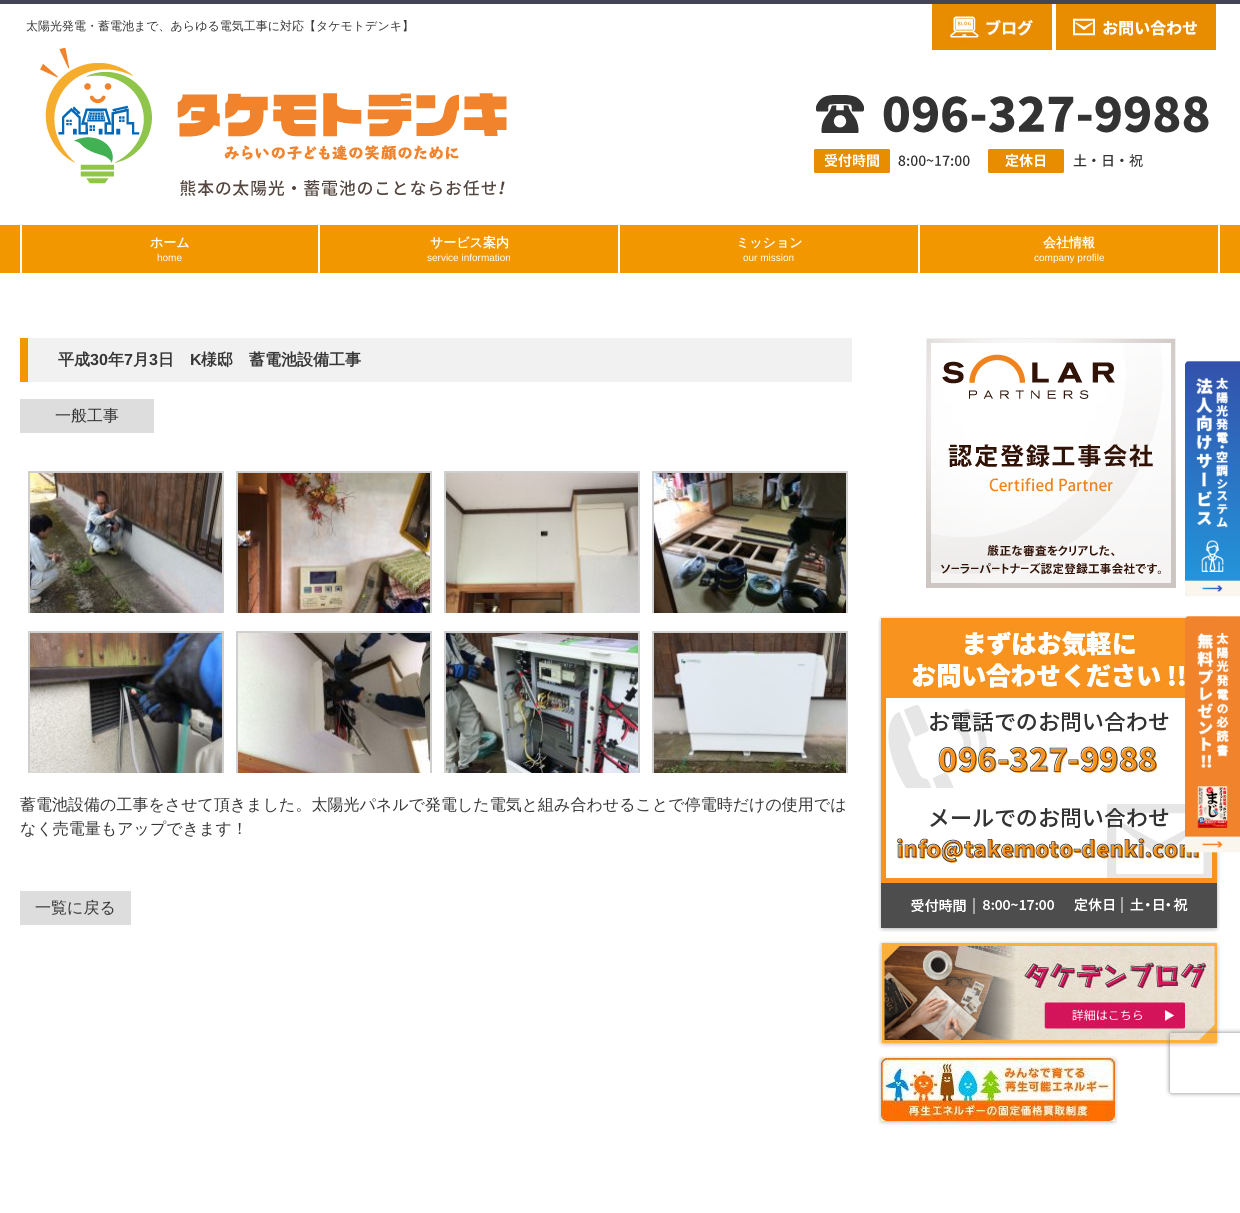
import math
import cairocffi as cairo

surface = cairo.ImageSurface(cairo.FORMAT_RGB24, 1240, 1213)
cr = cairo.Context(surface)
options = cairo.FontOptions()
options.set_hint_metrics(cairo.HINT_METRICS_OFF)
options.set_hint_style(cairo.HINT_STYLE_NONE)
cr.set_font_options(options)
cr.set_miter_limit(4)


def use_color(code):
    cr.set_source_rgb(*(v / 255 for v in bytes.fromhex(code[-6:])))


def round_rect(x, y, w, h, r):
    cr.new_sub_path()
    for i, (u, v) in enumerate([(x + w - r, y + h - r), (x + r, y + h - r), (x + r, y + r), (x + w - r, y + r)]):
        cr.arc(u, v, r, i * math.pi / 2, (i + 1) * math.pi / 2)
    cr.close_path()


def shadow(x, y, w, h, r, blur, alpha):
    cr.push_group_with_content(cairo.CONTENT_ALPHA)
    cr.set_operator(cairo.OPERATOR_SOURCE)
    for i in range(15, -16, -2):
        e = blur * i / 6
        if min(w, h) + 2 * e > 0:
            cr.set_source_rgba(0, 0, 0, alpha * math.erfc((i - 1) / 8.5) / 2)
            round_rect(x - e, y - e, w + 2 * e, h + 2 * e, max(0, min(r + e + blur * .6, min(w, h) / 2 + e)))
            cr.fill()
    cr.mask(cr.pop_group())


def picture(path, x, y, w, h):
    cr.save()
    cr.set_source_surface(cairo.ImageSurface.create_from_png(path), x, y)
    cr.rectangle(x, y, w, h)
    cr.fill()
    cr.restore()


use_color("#ffffff")
cr.paint()
use_color("#434555")
cr.rectangle(0, 0, 1240, 4)
cr.fill()
cr.select_font_face("WenQuanYi Zen Hei Medium")
cr.set_font_size(12)
use_color("#363636")
cr.move_to(26, 30)
cr.show_text("太陽光発電・蓄電池まで、あらゆる電気工事に対応【タケモトデンキ】")
picture("img1.png", 932, 4, 120, 46)
picture("img2.png", 1056, 4, 160, 46)
picture("img3.png", 40, 48, 467, 149)
picture("img4.png", 814, 95, 395, 78)
use_color("#f39700")
cr.rectangle(0, 225, 1240, 48)
cr.fill()
use_color("#ffffff")
cr.rectangle(318, 225, 2, 48)
cr.fill()
cr.rectangle(20, 225, 2, 48)
cr.fill()
cr.select_font_face("WenQuanYi Zen Hei", cairo.FONT_SLANT_NORMAL, cairo.FONT_WEIGHT_BOLD)
cr.set_font_size(13)
cr.move_to(150, 247)
cr.show_text("ホーム")
cr.select_font_face("Liberation Sans")
cr.set_font_size(10)
cr.move_to(157, 261)
cr.show_text("home")
cr.rectangle(618, 225, 2, 48)
cr.fill()
cr.select_font_face("WenQuanYi Zen Hei", cairo.FONT_SLANT_NORMAL, cairo.FONT_WEIGHT_BOLD)
cr.set_font_size(13)
cr.move_to(430, 247)
cr.show_text("サービス案内")
cr.select_font_face("Liberation Sans")
cr.set_font_size(10)
cr.move_to(427, 261)
cr.show_text("service information")
cr.rectangle(918, 225, 2, 48)
cr.fill()
cr.select_font_face("WenQuanYi Zen Hei", cairo.FONT_SLANT_NORMAL, cairo.FONT_WEIGHT_BOLD)
cr.set_font_size(13)
cr.move_to(736, 247)
cr.show_text("ミッション")
cr.select_font_face("Liberation Sans")
cr.set_font_size(10)
cr.move_to(743, 261)
cr.show_text("our mission")
cr.rectangle(1218, 225, 2, 48)
cr.fill()
cr.select_font_face("WenQuanYi Zen Hei", cairo.FONT_SLANT_NORMAL, cairo.FONT_WEIGHT_BOLD)
cr.set_font_size(13)
cr.move_to(1043, 247)
cr.show_text("会社情報")
cr.select_font_face("Liberation Sans")
cr.set_font_size(10)
cr.move_to(1034, 261)
cr.show_text("company profile")
picture("img5.png", 1185, 361, 55, 236)
picture("img16.png", 878, 616, 342, 316)
picture("img6.png", 1185, 616, 55, 237)
use_color("#f1f1f1")
cr.rectangle(28, 338, 824, 44)
cr.fill()
use_color("#f39700")
cr.rectangle(20, 338, 8, 44)
cr.fill()
cr.select_font_face("WenQuanYi Zen Hei", cairo.FONT_SLANT_NORMAL, cairo.FONT_WEIGHT_BOLD)
cr.set_font_size(16)
use_color("#363636")
cr.move_to(58, 365)
cr.show_text("平成")
cr.select_font_face("Liberation Sans", cairo.FONT_SLANT_NORMAL, cairo.FONT_WEIGHT_BOLD)
cr.move_to(90, 365)
cr.show_text("30")
cr.select_font_face("WenQuanYi Zen Hei", cairo.FONT_SLANT_NORMAL, cairo.FONT_WEIGHT_BOLD)
cr.move_to(108, 365)
cr.show_text("年")
cr.select_font_face("Liberation Sans", cairo.FONT_SLANT_NORMAL, cairo.FONT_WEIGHT_BOLD)
cr.move_to(124, 365)
cr.show_text("7")
cr.select_font_face("WenQuanYi Zen Hei", cairo.FONT_SLANT_NORMAL, cairo.FONT_WEIGHT_BOLD)
cr.move_to(133, 365)
cr.show_text("月")
cr.select_font_face("Liberation Sans", cairo.FONT_SLANT_NORMAL, cairo.FONT_WEIGHT_BOLD)
cr.move_to(149, 365)
cr.show_text("3")
cr.select_font_face("WenQuanYi Zen Hei", cairo.FONT_SLANT_NORMAL, cairo.FONT_WEIGHT_BOLD)
cr.move_to(158, 365)
cr.show_text("日")
cr.select_font_face("Liberation Sans", cairo.FONT_SLANT_NORMAL, cairo.FONT_WEIGHT_BOLD)
cr.move_to(190, 365)
cr.show_text("K")
cr.select_font_face("WenQuanYi Zen Hei", cairo.FONT_SLANT_NORMAL, cairo.FONT_WEIGHT_BOLD)
cr.move_to(201, 365)
cr.show_text("様邸　蓄電池設備工事")
use_color("#dddddd")
cr.rectangle(20, 399, 134, 34)
cr.fill()
cr.select_font_face("WenQuanYi Zen Hei Medium")
use_color("#363636")
cr.move_to(55, 421)
cr.show_text("一般工事")
cr.save()
cr.rectangle(20, 463, 208, 150)
cr.clip()
cr.rectangle(29, 472, 194, 153)
use_color("#cfcfcf")
cr.stroke()
cr.restore()
picture("img7.png", 30, 473, 192, 140)
cr.save()
cr.rectangle(228, 463, 208, 150)
cr.clip()
cr.rectangle(237, 472, 194, 153)
use_color("#cfcfcf")
cr.stroke()
cr.restore()
picture("img8.png", 238, 473, 192, 140)
cr.save()
cr.rectangle(436, 463, 208, 150)
cr.clip()
cr.rectangle(445, 472, 194, 153)
use_color("#cfcfcf")
cr.stroke()
cr.restore()
picture("img9.png", 446, 473, 192, 140)
cr.save()
cr.rectangle(644, 463, 208, 150)
cr.clip()
cr.rectangle(653, 472, 194, 153)
use_color("#cfcfcf")
cr.stroke()
cr.restore()
picture("img10.png", 654, 473, 192, 140)
cr.save()
cr.rectangle(20, 623, 208, 150)
cr.clip()
cr.rectangle(29, 632, 194, 153)
use_color("#cfcfcf")
cr.stroke()
cr.restore()
picture("img11.png", 30, 633, 192, 140)
cr.save()
cr.rectangle(228, 623, 208, 150)
cr.clip()
cr.rectangle(237, 632, 194, 153)
use_color("#cfcfcf")
cr.stroke()
cr.restore()
picture("img12.png", 238, 633, 192, 140)
cr.save()
cr.rectangle(436, 623, 208, 150)
cr.clip()
cr.rectangle(445, 632, 194, 153)
use_color("#cfcfcf")
cr.stroke()
cr.restore()
picture("img13.png", 446, 633, 192, 140)
cr.save()
cr.rectangle(644, 623, 208, 150)
cr.clip()
cr.rectangle(653, 632, 194, 153)
use_color("#cfcfcf")
cr.stroke()
cr.restore()
picture("img14.png", 654, 633, 192, 140)
cr.move_to(20, 810)
cr.show_text("蓄電池設備の工事をさせて頂きました。太陽光パネルで発電した電気と組み合わせることで停電時だけの使用では")
cr.move_to(20, 834)
cr.show_text("なく売電量もアップできます！")
use_color("#dddddd")
cr.rectangle(20, 891, 111, 34)
cr.fill()
use_color("#363636")
cr.move_to(35, 913)
cr.show_text("一覧に戻る")
picture("img15.png", 926, 338, 250, 250)
picture("img17.png", 878, 941, 342, 106)
picture("img18.png", 878, 1056, 240, 69)
cr.save()
cr.set_fill_rule(cairo.FILL_RULE_EVEN_ODD)
cr.new_path()
cr.move_to(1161, 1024)
cr.line_to(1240, 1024)
cr.line_to(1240, 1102)
cr.line_to(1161, 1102)
cr.close_path()
cr.move_to(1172, 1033)
cr.line_to(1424, 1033)
cr.curve_to(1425, 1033, 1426, 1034, 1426, 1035)
cr.line_to(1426, 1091)
cr.curve_to(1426, 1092, 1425, 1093, 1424, 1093)
cr.line_to(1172, 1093)
cr.curve_to(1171, 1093, 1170, 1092, 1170, 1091)
cr.line_to(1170, 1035)
cr.curve_to(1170, 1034, 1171, 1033, 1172, 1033)
cr.close_path()
cr.clip()
use_color("#808080")
shadow(1170, 1033, 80, 60, 2, 2.5, 1)
cr.restore()
surface.write_to_png("result.png")
